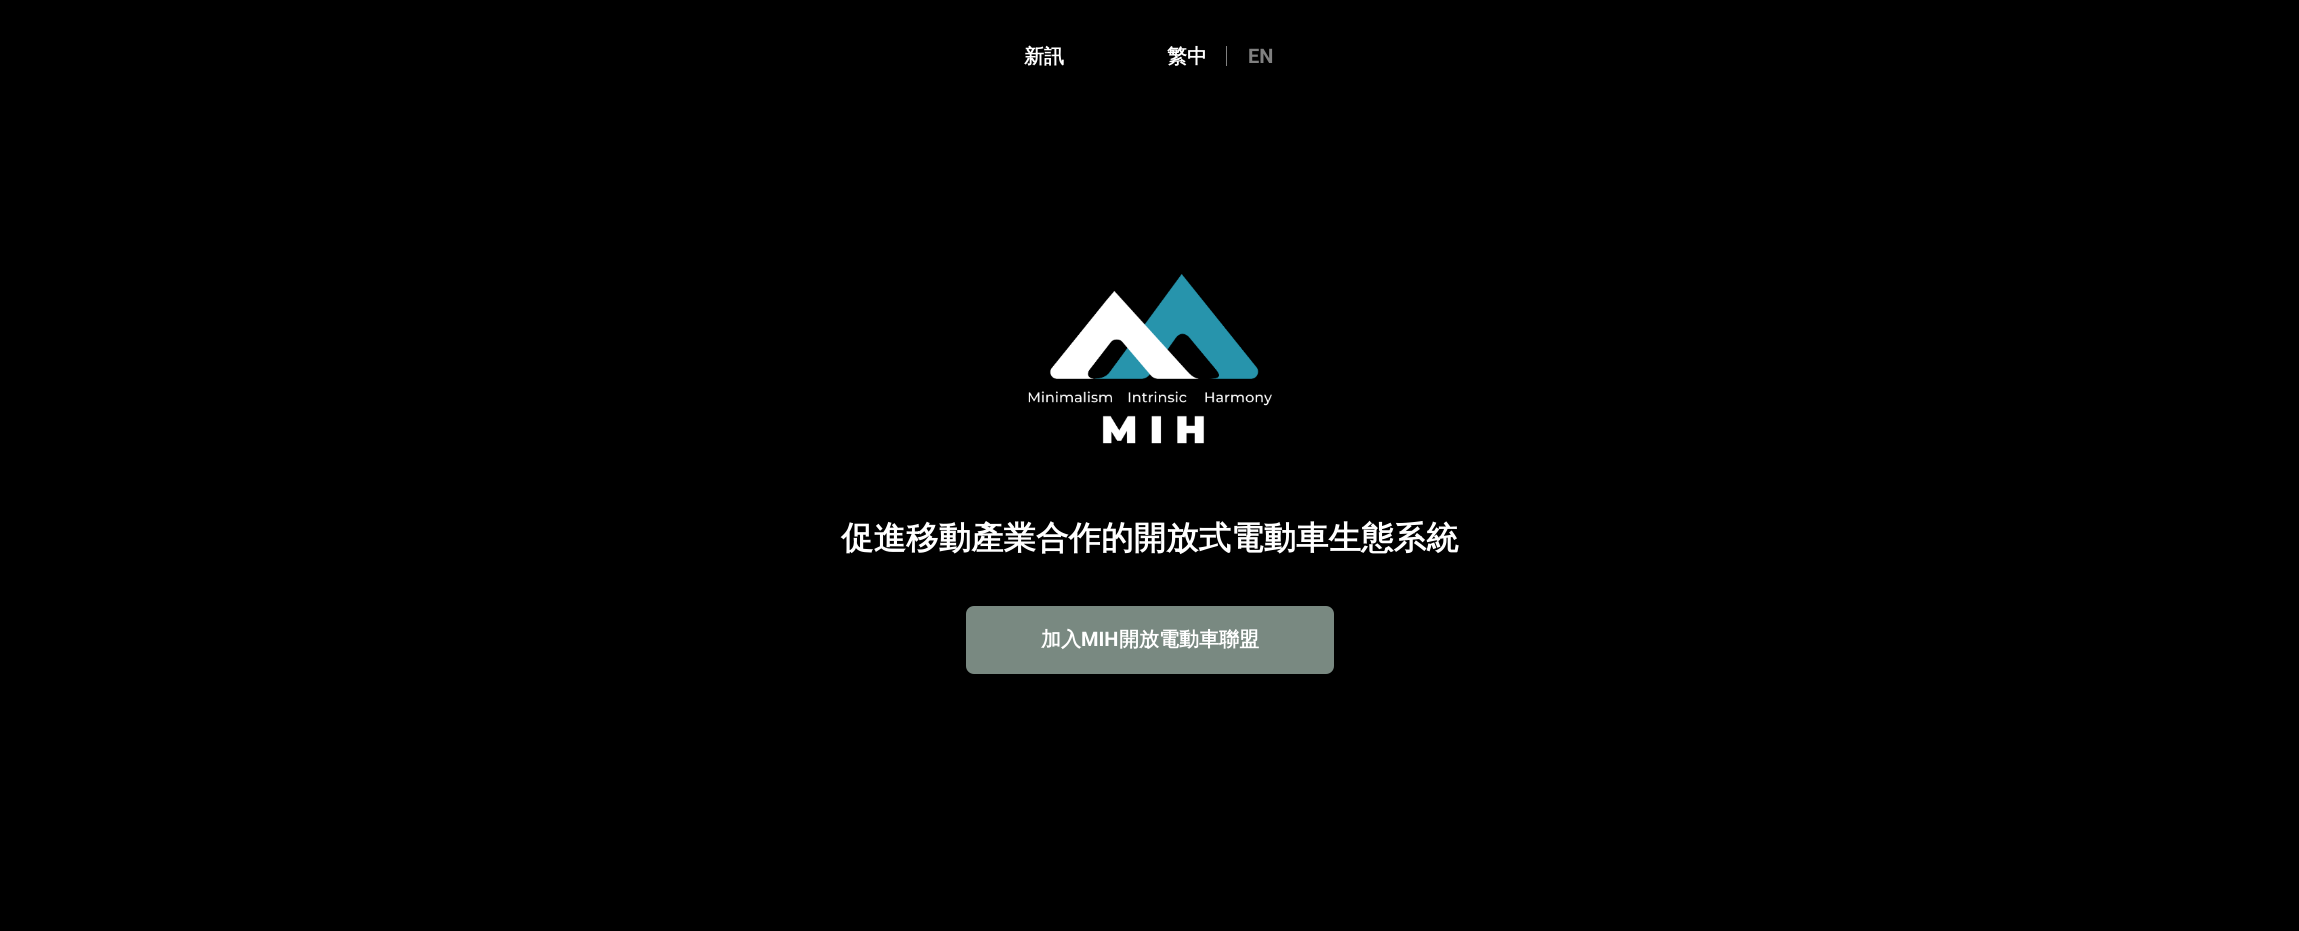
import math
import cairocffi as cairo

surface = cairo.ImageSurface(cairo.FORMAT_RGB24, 2299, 931)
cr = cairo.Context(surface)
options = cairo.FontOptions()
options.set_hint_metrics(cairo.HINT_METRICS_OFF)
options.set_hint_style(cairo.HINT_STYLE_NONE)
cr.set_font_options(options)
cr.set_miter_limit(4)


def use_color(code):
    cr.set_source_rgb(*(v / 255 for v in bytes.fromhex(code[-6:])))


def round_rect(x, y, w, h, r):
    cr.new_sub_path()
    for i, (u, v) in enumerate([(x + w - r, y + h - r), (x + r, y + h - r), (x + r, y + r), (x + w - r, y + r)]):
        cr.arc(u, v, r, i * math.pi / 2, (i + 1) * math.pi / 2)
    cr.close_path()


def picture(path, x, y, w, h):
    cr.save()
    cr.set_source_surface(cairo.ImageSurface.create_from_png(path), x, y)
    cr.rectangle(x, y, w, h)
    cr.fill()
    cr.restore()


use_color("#000000")
cr.paint()
cr.select_font_face("WenQuanYi Zen Hei", cairo.FONT_SLANT_NORMAL, cairo.FONT_WEIGHT_BOLD)
cr.set_font_size(20)
use_color("#ffffff")
cr.move_to(1024, 63)
cr.show_text("新訊")
cr.move_to(1167, 63)
cr.show_text("繁中")
use_color("#808080")
cr.rectangle(1226, 46, 1, 20)
cr.fill()
cr.select_font_face("Roboto", cairo.FONT_SLANT_NORMAL, cairo.FONT_WEIGHT_BOLD)
cr.move_to(1248, 63)
cr.show_text("EN")
picture("img1.png", 1028, 274, 244, 170)
cr.select_font_face("WenQuanYi Zen Hei", cairo.FONT_SLANT_NORMAL, cairo.FONT_WEIGHT_BOLD)
cr.set_font_size(32.5)
use_color("#ffffff")
cr.move_to(841, 549)
cr.show_text("促進移動產業合作的開放式電動車生態系統")
use_color("#798981")
round_rect(966, 606, 368, 68, 8)
cr.fill()
cr.set_font_size(20)
use_color("#ffffff")
cr.move_to(1041, 646)
cr.show_text("加入")
cr.select_font_face("Roboto", cairo.FONT_SLANT_NORMAL, cairo.FONT_WEIGHT_BOLD)
cr.move_to(1081, 646)
cr.show_text("MIH")
cr.select_font_face("WenQuanYi Zen Hei", cairo.FONT_SLANT_NORMAL, cairo.FONT_WEIGHT_BOLD)
cr.move_to(1119, 646)
cr.show_text("開放電動車聯盟")
surface.write_to_png("result.png")
